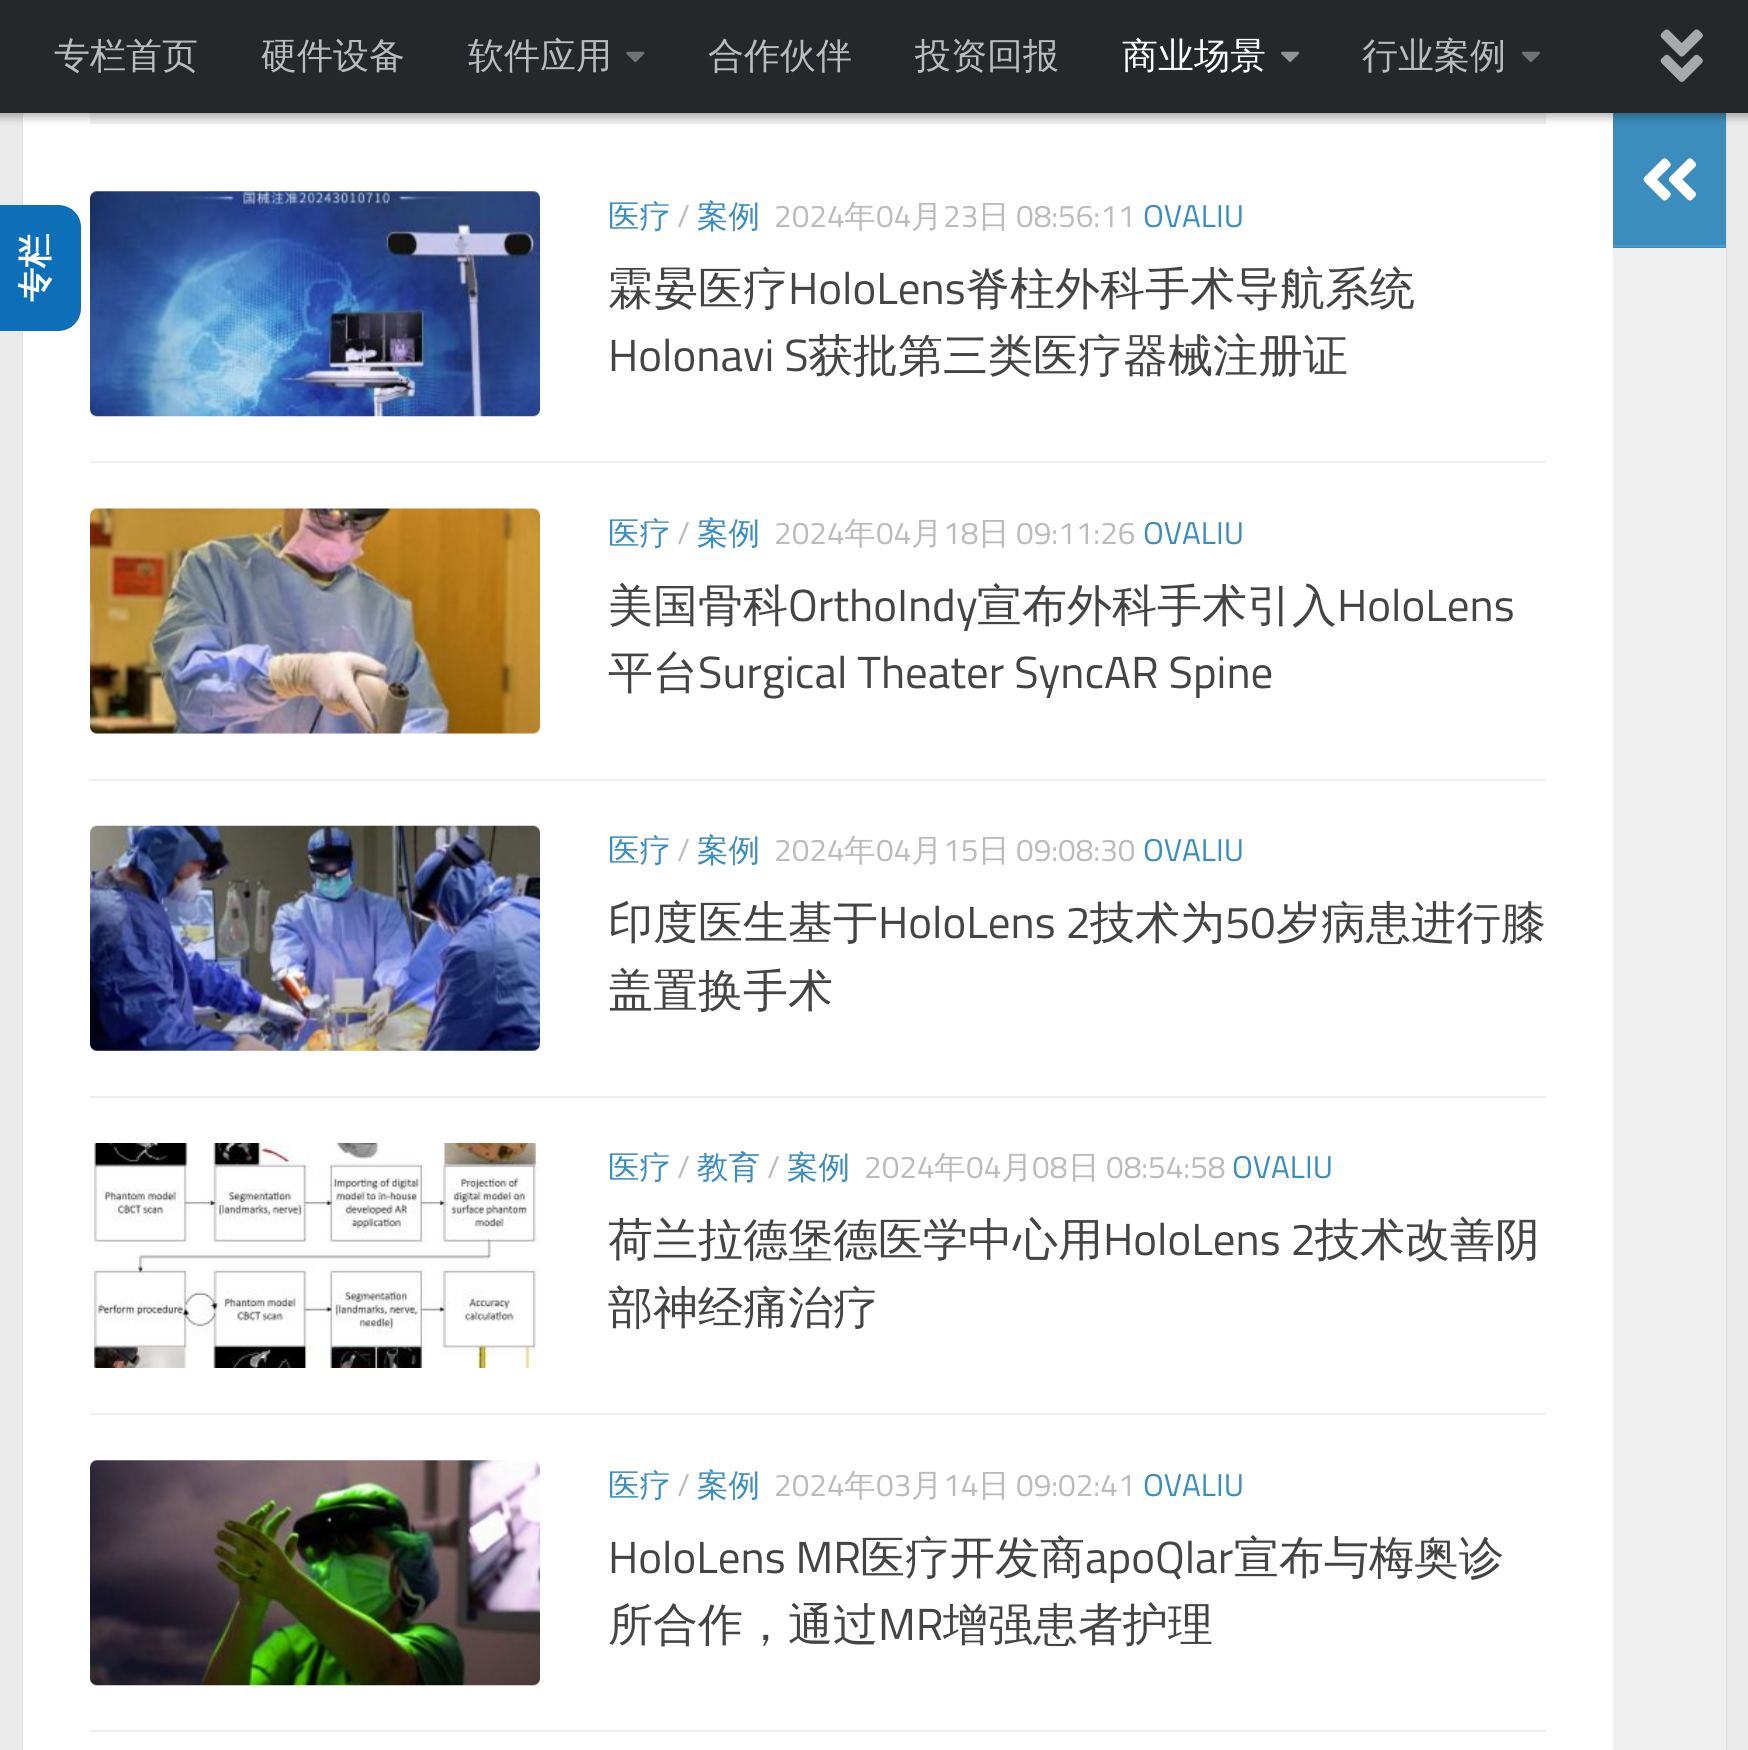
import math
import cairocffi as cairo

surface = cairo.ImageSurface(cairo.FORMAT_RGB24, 1748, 1750)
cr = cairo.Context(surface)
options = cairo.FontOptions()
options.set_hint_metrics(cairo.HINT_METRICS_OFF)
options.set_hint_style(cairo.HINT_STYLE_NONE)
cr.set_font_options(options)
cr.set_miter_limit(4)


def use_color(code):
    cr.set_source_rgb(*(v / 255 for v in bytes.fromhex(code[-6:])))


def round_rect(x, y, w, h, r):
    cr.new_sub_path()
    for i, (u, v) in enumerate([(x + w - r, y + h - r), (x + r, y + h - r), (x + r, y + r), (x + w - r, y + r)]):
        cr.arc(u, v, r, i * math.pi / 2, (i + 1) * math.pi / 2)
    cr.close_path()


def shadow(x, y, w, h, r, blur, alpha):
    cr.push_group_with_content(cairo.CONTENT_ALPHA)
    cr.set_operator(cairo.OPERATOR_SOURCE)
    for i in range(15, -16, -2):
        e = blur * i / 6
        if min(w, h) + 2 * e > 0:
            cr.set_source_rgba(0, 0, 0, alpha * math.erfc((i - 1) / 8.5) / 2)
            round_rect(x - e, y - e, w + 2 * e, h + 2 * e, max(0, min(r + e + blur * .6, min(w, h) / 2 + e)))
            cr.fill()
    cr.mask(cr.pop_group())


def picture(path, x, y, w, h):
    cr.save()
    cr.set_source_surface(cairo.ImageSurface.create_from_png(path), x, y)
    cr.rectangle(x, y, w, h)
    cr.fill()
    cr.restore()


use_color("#eaeaea")
cr.paint()
use_color("#000000")
shadow(23, -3, 1703, 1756, 0, 1, 0.1)
use_color("#ffffff")
cr.rectangle(23, 113, 1590, 1637)
cr.fill()
use_color("#0d6fb8")
cr.new_path()
cr.move_to(-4, 331)
cr.line_to(-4, 205)
cr.line_to(58, 205)
cr.curve_to(71, 205, 81, 215, 81, 227)
cr.line_to(81, 308)
cr.curve_to(81, 321, 71, 331, 58, 331)
cr.close_path()
cr.fill()
cr.select_font_face("WenQuanYi Zen Hei", cairo.FONT_SLANT_NORMAL, cairo.FONT_WEIGHT_BOLD)
cr.set_font_size(34)
use_color("#ffffff")
cr.save()
cr.translate(47, 302)
cr.rotate(-90 * math.pi / 180)
cr.move_to(0, 0)
cr.show_text("专栏")
cr.restore()
use_color("#3b8dbd")
cr.rectangle(1613, 113, 113, 135)
cr.fill()
use_color("#f0f0f0")
cr.rectangle(90, 113, 1456, 11)
cr.fill()
use_color("#000000")
shadow(-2, 0, 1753, 117, 0, 4.5, 0.3)
use_color("#26272b")
cr.rectangle(0, 0, 1748, 113)
cr.fill()
cr.select_font_face("WenQuanYi Zen Hei Medium")
cr.set_font_size(36)
use_color("#bbbbbb")
cr.move_to(54, 68)
cr.show_text("专栏首页")
cr.move_to(261, 68)
cr.show_text("硬件设备")
cr.move_to(468, 68)
cr.show_text("软件应用")
picture("img1.png", 626, 51, 19, 12)
cr.move_to(708, 68)
cr.show_text("合作伙伴")
cr.move_to(915, 68)
cr.show_text("投资回报")
use_color("#ffffff")
cr.move_to(1122, 68)
cr.show_text("商业场景")
picture("img2.png", 1281, 51, 19, 12)
use_color("#bbbbbb")
cr.move_to(1362, 68)
cr.show_text("行业案例")
picture("img3.png", 1521, 51, 19, 12)
picture("img4.png", 1660, 29, 43, 53)
use_color("#4f98c4")
cr.rectangle(1613, 245, 113, 2)
cr.fill()
picture("img5.png", 1643, 158, 53, 43)
use_color("#eeeeee")
cr.rectangle(90, 461, 1456, 2)
cr.fill()
picture("img6.png", 90, 191, 450, 226)
cr.set_font_size(31.5)
use_color("#3b8dbd")
cr.move_to(608, 227)
cr.show_text("医疗")
cr.select_font_face("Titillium")
use_color("#bbbbbb")
cr.move_to(677, 227)
cr.show_text("/")
cr.select_font_face("WenQuanYi Zen Hei Medium")
use_color("#3b8dbd")
cr.move_to(697, 227)
cr.show_text("案例")
cr.select_font_face("Titillium")
use_color("#bbbbbb")
cr.move_to(774, 227)
cr.show_text("2024")
cr.select_font_face("WenQuanYi Zen Hei Medium")
cr.move_to(844, 227)
cr.show_text("年")
cr.select_font_face("Titillium")
cr.move_to(876, 227)
cr.show_text("04")
cr.select_font_face("WenQuanYi Zen Hei Medium")
cr.move_to(911, 227)
cr.show_text("月")
cr.select_font_face("Titillium")
cr.move_to(943, 227)
cr.show_text("23")
cr.select_font_face("WenQuanYi Zen Hei Medium")
cr.move_to(978, 227)
cr.show_text("日")
cr.select_font_face("Titillium")
cr.move_to(1016, 227)
cr.show_text("08:56:11")
use_color("#3b8dbd")
cr.move_to(1143, 227)
cr.show_text("OVALIU")
cr.select_font_face("WenQuanYi Zen Hei Medium")
cr.set_font_size(45)
use_color("#444444")
cr.move_to(608, 304)
cr.show_text("霖晏医疗")
cr.select_font_face("Titillium")
cr.move_to(788, 304)
cr.show_text("HoloLens")
cr.select_font_face("WenQuanYi Zen Hei Medium")
cr.move_to(965, 304)
cr.show_text("脊柱外科手术导航系统")
cr.select_font_face("Titillium")
cr.move_to(608, 371)
cr.show_text("Holonavi S")
cr.select_font_face("WenQuanYi Zen Hei Medium")
cr.move_to(808, 371)
cr.show_text("获批第三类医疗器械注册证")
use_color("#eeeeee")
cr.rectangle(90, 779, 1456, 2)
cr.fill()
picture("img7.png", 90, 508, 450, 226)
cr.set_font_size(31.5)
use_color("#3b8dbd")
cr.move_to(608, 544)
cr.show_text("医疗")
cr.select_font_face("Titillium")
use_color("#bbbbbb")
cr.move_to(677, 544)
cr.show_text("/")
cr.select_font_face("WenQuanYi Zen Hei Medium")
use_color("#3b8dbd")
cr.move_to(697, 544)
cr.show_text("案例")
cr.select_font_face("Titillium")
use_color("#bbbbbb")
cr.move_to(774, 544)
cr.show_text("2024")
cr.select_font_face("WenQuanYi Zen Hei Medium")
cr.move_to(844, 544)
cr.show_text("年")
cr.select_font_face("Titillium")
cr.move_to(876, 544)
cr.show_text("04")
cr.select_font_face("WenQuanYi Zen Hei Medium")
cr.move_to(911, 544)
cr.show_text("月")
cr.select_font_face("Titillium")
cr.move_to(943, 544)
cr.show_text("18")
cr.select_font_face("WenQuanYi Zen Hei Medium")
cr.move_to(978, 544)
cr.show_text("日")
cr.select_font_face("Titillium")
cr.move_to(1016, 544)
cr.show_text("09:11:26")
use_color("#3b8dbd")
cr.move_to(1143, 544)
cr.show_text("OVALIU")
cr.select_font_face("WenQuanYi Zen Hei Medium")
cr.set_font_size(45)
use_color("#444444")
cr.move_to(608, 621)
cr.show_text("美国骨科")
cr.select_font_face("Titillium")
cr.move_to(788, 621)
cr.show_text("OrthoIndy")
cr.select_font_face("WenQuanYi Zen Hei Medium")
cr.move_to(977, 621)
cr.show_text("宣布外科手术引入")
cr.select_font_face("Titillium")
cr.move_to(1337, 621)
cr.show_text("HoloLens")
cr.select_font_face("WenQuanYi Zen Hei Medium")
cr.move_to(608, 688)
cr.show_text("平台")
cr.select_font_face("Titillium")
cr.move_to(698, 688)
cr.show_text("Surgical Theater SyncAR Spine")
use_color("#eeeeee")
cr.rectangle(90, 1096, 1456, 2)
cr.fill()
picture("img8.png", 90, 825, 450, 226)
cr.select_font_face("WenQuanYi Zen Hei Medium")
cr.set_font_size(31.5)
use_color("#3b8dbd")
cr.move_to(608, 861)
cr.show_text("医疗")
cr.select_font_face("Titillium")
use_color("#bbbbbb")
cr.move_to(677, 861)
cr.show_text("/")
cr.select_font_face("WenQuanYi Zen Hei Medium")
use_color("#3b8dbd")
cr.move_to(697, 861)
cr.show_text("案例")
cr.select_font_face("Titillium")
use_color("#bbbbbb")
cr.move_to(774, 861)
cr.show_text("2024")
cr.select_font_face("WenQuanYi Zen Hei Medium")
cr.move_to(844, 861)
cr.show_text("年")
cr.select_font_face("Titillium")
cr.move_to(876, 861)
cr.show_text("04")
cr.select_font_face("WenQuanYi Zen Hei Medium")
cr.move_to(911, 861)
cr.show_text("月")
cr.select_font_face("Titillium")
cr.move_to(943, 861)
cr.show_text("15")
cr.select_font_face("WenQuanYi Zen Hei Medium")
cr.move_to(978, 861)
cr.show_text("日")
cr.select_font_face("Titillium")
cr.move_to(1016, 861)
cr.show_text("09:08:30")
use_color("#3b8dbd")
cr.move_to(1143, 861)
cr.show_text("OVALIU")
cr.select_font_face("WenQuanYi Zen Hei Medium")
cr.set_font_size(45)
use_color("#444444")
cr.move_to(608, 938)
cr.show_text("印度医生基于")
cr.select_font_face("Titillium")
cr.move_to(878, 938)
cr.show_text("HoloLens 2")
cr.select_font_face("WenQuanYi Zen Hei Medium")
cr.move_to(1090, 938)
cr.show_text("技术为")
cr.select_font_face("Titillium")
cr.move_to(1225, 938)
cr.show_text("50")
cr.select_font_face("WenQuanYi Zen Hei Medium")
cr.move_to(1276, 938)
cr.show_text("岁病患进行膝")
cr.move_to(608, 1006)
cr.show_text("盖置换手术")
use_color("#eeeeee")
cr.rectangle(90, 1413, 1456, 2)
cr.fill()
picture("img9.png", 90, 1143, 450, 225)
cr.set_font_size(31.5)
use_color("#3b8dbd")
cr.move_to(608, 1178)
cr.show_text("医疗")
cr.select_font_face("Titillium")
use_color("#bbbbbb")
cr.move_to(677, 1178)
cr.show_text("/")
cr.select_font_face("WenQuanYi Zen Hei Medium")
use_color("#3b8dbd")
cr.move_to(697, 1178)
cr.show_text("教育")
cr.select_font_face("Titillium")
use_color("#bbbbbb")
cr.move_to(767, 1178)
cr.show_text("/")
cr.select_font_face("WenQuanYi Zen Hei Medium")
use_color("#3b8dbd")
cr.move_to(787, 1178)
cr.show_text("案例")
cr.select_font_face("Titillium")
use_color("#bbbbbb")
cr.move_to(864, 1178)
cr.show_text("2024")
cr.select_font_face("WenQuanYi Zen Hei Medium")
cr.move_to(934, 1178)
cr.show_text("年")
cr.select_font_face("Titillium")
cr.move_to(966, 1178)
cr.show_text("04")
cr.select_font_face("WenQuanYi Zen Hei Medium")
cr.move_to(1001, 1178)
cr.show_text("月")
cr.select_font_face("Titillium")
cr.move_to(1032, 1178)
cr.show_text("08")
cr.select_font_face("WenQuanYi Zen Hei Medium")
cr.move_to(1068, 1178)
cr.show_text("日")
cr.select_font_face("Titillium")
cr.move_to(1106, 1178)
cr.show_text("08:54:58")
use_color("#3b8dbd")
cr.move_to(1232, 1178)
cr.show_text("OVALIU")
cr.select_font_face("WenQuanYi Zen Hei Medium")
cr.set_font_size(45)
use_color("#444444")
cr.move_to(608, 1255)
cr.show_text("荷兰拉德堡德医学中心用")
cr.select_font_face("Titillium")
cr.move_to(1103, 1255)
cr.show_text("HoloLens 2")
cr.select_font_face("WenQuanYi Zen Hei Medium")
cr.move_to(1315, 1255)
cr.show_text("技术改善阴")
cr.move_to(608, 1323)
cr.show_text("部神经痛治疗")
use_color("#eeeeee")
cr.rectangle(90, 1730, 1456, 2)
cr.fill()
picture("img10.png", 90, 1460, 450, 226)
cr.set_font_size(31.5)
use_color("#3b8dbd")
cr.move_to(608, 1496)
cr.show_text("医疗")
cr.select_font_face("Titillium")
use_color("#bbbbbb")
cr.move_to(677, 1496)
cr.show_text("/")
cr.select_font_face("WenQuanYi Zen Hei Medium")
use_color("#3b8dbd")
cr.move_to(697, 1496)
cr.show_text("案例")
cr.select_font_face("Titillium")
use_color("#bbbbbb")
cr.move_to(774, 1496)
cr.show_text("2024")
cr.select_font_face("WenQuanYi Zen Hei Medium")
cr.move_to(844, 1496)
cr.show_text("年")
cr.select_font_face("Titillium")
cr.move_to(876, 1496)
cr.show_text("03")
cr.select_font_face("WenQuanYi Zen Hei Medium")
cr.move_to(911, 1496)
cr.show_text("月")
cr.select_font_face("Titillium")
cr.move_to(943, 1496)
cr.show_text("14")
cr.select_font_face("WenQuanYi Zen Hei Medium")
cr.move_to(978, 1496)
cr.show_text("日")
cr.select_font_face("Titillium")
cr.move_to(1016, 1496)
cr.show_text("09:02:41")
use_color("#3b8dbd")
cr.move_to(1143, 1496)
cr.show_text("OVALIU")
cr.set_font_size(45)
use_color("#444444")
cr.move_to(608, 1573)
cr.show_text("HoloLens MR")
cr.select_font_face("WenQuanYi Zen Hei Medium")
cr.move_to(860, 1573)
cr.show_text("医疗开发商")
cr.select_font_face("Titillium")
cr.move_to(1085, 1573)
cr.show_text("apoQlar")
cr.select_font_face("WenQuanYi Zen Hei Medium")
cr.move_to(1234, 1573)
cr.show_text("宣布与梅奥诊")
cr.move_to(608, 1640)
cr.show_text("所合作，通过")
cr.select_font_face("Titillium")
cr.move_to(878, 1640)
cr.show_text("MR")
cr.select_font_face("WenQuanYi Zen Hei Medium")
cr.move_to(943, 1640)
cr.show_text("增强患者护理")
use_color("#f0f0f0")
cr.rectangle(1613, 248, 113, 1502)
cr.fill()
surface.write_to_png("result.png")
